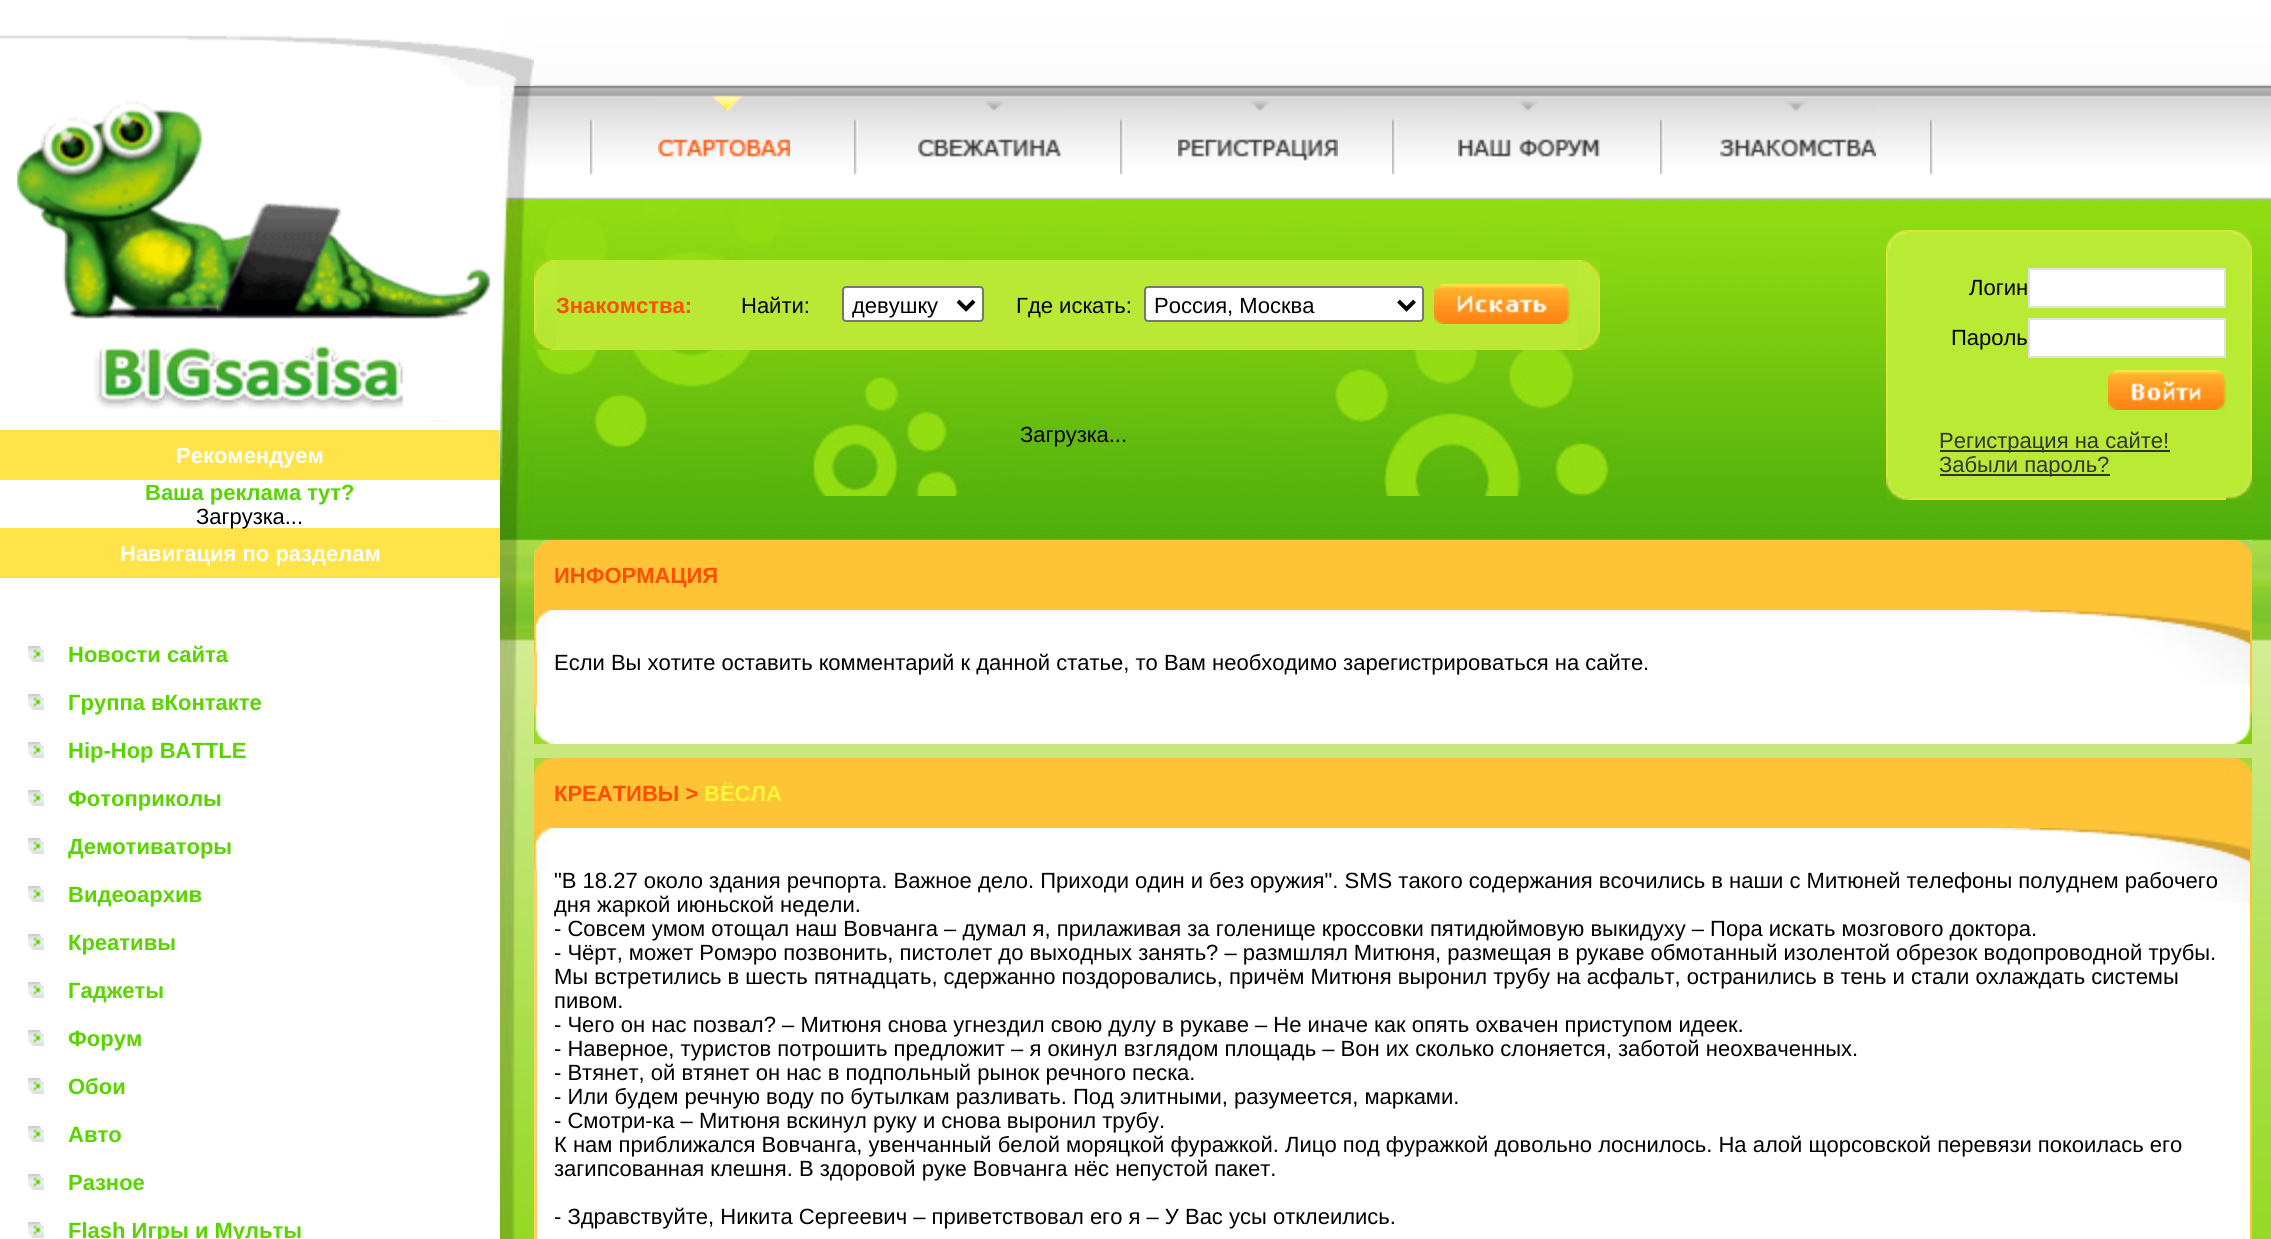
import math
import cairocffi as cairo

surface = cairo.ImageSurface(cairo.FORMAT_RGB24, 2271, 1239)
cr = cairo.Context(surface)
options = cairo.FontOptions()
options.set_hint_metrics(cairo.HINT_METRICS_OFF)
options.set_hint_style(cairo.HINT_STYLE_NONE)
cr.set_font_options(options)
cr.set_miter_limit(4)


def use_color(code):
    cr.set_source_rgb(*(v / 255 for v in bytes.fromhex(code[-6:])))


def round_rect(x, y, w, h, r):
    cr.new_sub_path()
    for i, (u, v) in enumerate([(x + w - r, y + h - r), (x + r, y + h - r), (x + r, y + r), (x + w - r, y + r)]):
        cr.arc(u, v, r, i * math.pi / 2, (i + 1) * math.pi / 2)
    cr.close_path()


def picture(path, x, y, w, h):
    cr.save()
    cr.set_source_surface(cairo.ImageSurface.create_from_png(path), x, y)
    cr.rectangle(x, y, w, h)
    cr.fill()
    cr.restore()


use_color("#ffffff")
cr.paint()
picture("img1.png", 0, 35, 500, 51)
picture("img2.png", 16, 101, 476, 321)
use_color("#ffe349")
cr.rectangle(0, 430, 500, 50)
cr.fill()
cr.select_font_face("Liberation Sans", cairo.FONT_SLANT_NORMAL, cairo.FONT_WEIGHT_BOLD)
cr.set_font_size(22)
use_color("#ffffff")
cr.move_to(176, 463)
cr.show_text("Рекомендуем")
use_color("#59d400")
cr.move_to(145, 500)
cr.show_text("Ваша реклама тут?")
use_color("#ffe349")
cr.rectangle(0, 528, 500, 50)
cr.fill()
cr.select_font_face("Liberation Sans")
use_color("#000000")
cr.move_to(196, 524)
cr.show_text("Загрузка...")
cr.select_font_face("Liberation Sans", cairo.FONT_SLANT_NORMAL, cairo.FONT_WEIGHT_BOLD)
use_color("#ffffff")
cr.move_to(120, 561)
cr.show_text("Навигация по разделам")
picture("img3.png", 28, 646, 16, 16)
use_color("#59d400")
cr.move_to(68, 662)
cr.show_text("Новости сайта")
picture("img3.png", 28, 694, 16, 16)
cr.move_to(68, 710)
cr.show_text("Группа вКонтакте")
picture("img3.png", 28, 742, 16, 16)
cr.move_to(68, 758)
cr.show_text("Hip-Hop BATTLE")
picture("img3.png", 28, 790, 16, 16)
cr.move_to(68, 806)
cr.show_text("Фотоприколы")
picture("img3.png", 28, 838, 16, 16)
cr.move_to(68, 854)
cr.show_text("Демотиваторы")
picture("img3.png", 28, 886, 16, 16)
cr.move_to(68, 902)
cr.show_text("Видеоархив")
picture("img3.png", 28, 934, 16, 16)
cr.move_to(68, 950)
cr.show_text("Креативы")
picture("img3.png", 28, 982, 16, 16)
cr.move_to(68, 998)
cr.show_text("Гаджеты")
picture("img3.png", 28, 1030, 16, 16)
cr.move_to(68, 1046)
cr.show_text("Форум")
picture("img3.png", 28, 1078, 16, 16)
cr.move_to(68, 1094)
cr.show_text("Обои")
picture("img3.png", 28, 1126, 16, 16)
cr.move_to(68, 1142)
cr.show_text("Авто")
picture("img3.png", 28, 1174, 16, 16)
cr.move_to(68, 1190)
cr.show_text("Разное")
picture("img3.png", 28, 1222, 16, 16)
cr.move_to(68, 1238)
cr.show_text("Flash Игры и Мульты")
picture("img4.png", 500, 0, 34, 86)
picture("img5.png", 500, 86, 34, 440)
picture("img6.png", 500, 526, 34, 713)
picture("img7.png", 534, 0, 1737, 1239)
picture("img8.png", 534, 86, 1737, 114)
picture("img9.png", 590, 119, 4, 56)
picture("img10.png", 658, 95, 132, 62)
picture("img9.png", 854, 119, 4, 56)
picture("img11.png", 918, 101, 144, 56)
picture("img9.png", 1120, 119, 4, 56)
picture("img12.png", 1178, 100, 160, 61)
picture("img9.png", 1392, 119, 4, 56)
picture("img13.png", 1458, 100, 142, 57)
picture("img9.png", 1660, 119, 4, 56)
picture("img14.png", 1720, 101, 156, 56)
picture("img9.png", 1930, 119, 4, 56)
picture("img15.png", 534, 200, 1088, 296)
picture("img16.png", 534, 260, 22, 90)
use_color("#b9e934")
cr.rectangle(556, 260, 1022, 90)
cr.fill()
use_color("#ff4e00")
cr.move_to(556, 313)
cr.show_text("Знакомства:")
cr.select_font_face("Liberation Sans")
use_color("#000000")
cr.move_to(741, 313)
cr.show_text("Найти:")
use_color("#ffffff")
round_rect(843, 287, 140, 34, 3)
cr.fill_preserve()
use_color("#767676")
cr.stroke()
cr.new_path()
cr.move_to(958, 301)
cr.line_to(966, 309)
cr.line_to(974, 301)
use_color("#000000")
cr.set_line_width(4)
cr.stroke()
cr.move_to(852, 313)
cr.show_text("девушку")
cr.move_to(1016, 313)
cr.show_text("Где искать:")
use_color("#ffffff")
round_rect(1145, 287, 278, 34, 3)
cr.fill_preserve()
use_color("#767676")
cr.set_line_width(2)
cr.stroke()
cr.new_path()
cr.move_to(1398.5, 301)
cr.line_to(1406.5, 309)
cr.line_to(1414.5, 301)
use_color("#000000")
cr.set_line_width(4)
cr.stroke()
cr.move_to(1154, 313)
cr.show_text("Россия, Москва")
picture("img17.png", 1434, 284, 136, 40)
picture("img18.png", 1578, 260, 22, 90)
picture("img19.png", 1886, 230, 24, 22)
use_color("#b9ea34")
cr.rectangle(1910, 232, 316, 20)
cr.fill()
use_color("#e3e13b")
cr.rectangle(1910, 230, 316, 2)
cr.fill()
picture("img20.png", 2226, 230, 26, 22)
use_color("#b9ea34")
cr.rectangle(1888, 252, 362, 224)
cr.fill()
use_color("#e3e13b")
cr.rectangle(1886, 252, 2, 224)
cr.fill()
cr.rectangle(2250, 252, 2, 224)
cr.fill()
use_color("#000000")
cr.move_to(1969, 295)
cr.show_text("Логин")
use_color("#ffffff")
cr.rectangle(2029, 269, 196, 38)
cr.fill_preserve()
use_color("#e0e0e0")
cr.set_line_width(2)
cr.stroke()
use_color("#000000")
cr.move_to(1951, 345)
cr.show_text("Пароль")
use_color("#ffffff")
cr.rectangle(2029, 319, 196, 38)
cr.fill_preserve()
use_color("#e0e0e0")
cr.stroke()
picture("img21.png", 2108, 370, 118, 40)
use_color("#333333")
cr.rectangle(1940, 450, 230, 2)
cr.fill()
cr.move_to(1939, 448)
cr.show_text("Регистрация на сайте!")
cr.rectangle(1940, 474, 170, 2)
cr.fill()
use_color("#b9ea34")
cr.rectangle(1910, 476, 316, 22)
cr.fill()
use_color("#333333")
cr.move_to(1939, 472)
cr.show_text("Забыли пароль?")
use_color("#b9ea34")
cr.rectangle(1886, 476, 24, 2)
cr.fill()
picture("img22.png", 1886, 478, 24, 22)
use_color("#e3e13b")
cr.rectangle(1910, 498, 316, 2)
cr.fill()
picture("img23.png", 2226, 476, 26, 24)
use_color("#000000")
cr.move_to(1020, 442)
cr.show_text("Загрузка...")
picture("img24.png", 534, 540, 20, 70)
use_color("#ffc337")
cr.rectangle(554, 540, 1672, 70)
cr.fill()
cr.select_font_face("Liberation Sans", cairo.FONT_SLANT_NORMAL, cairo.FONT_WEIGHT_BOLD)
use_color("#ff4e00")
cr.move_to(554, 583)
cr.show_text("ИНФОРМАЦИЯ")
picture("img25.png", 2226, 540, 26, 70)
use_color("#ffffff")
cr.rectangle(537, 652, 17, 54)
cr.fill()
use_color("#ffd269")
cr.rectangle(534, 652, 3, 54)
cr.fill()
picture("img26.png", 534, 610, 20, 42)
use_color("#ffffff")
cr.rectangle(554, 610, 1696, 96)
cr.fill()
picture("img27.png", 1992, 610, 258, 74)
use_color("#ffc337")
cr.rectangle(2250, 610, 2, 96)
cr.fill()
cr.select_font_face("Liberation Sans")
use_color("#000000")
cr.move_to(554, 670)
cr.show_text("Eсли Вы хотите оставить комментарий к данной статье, то Вам необходимо зарегистрироваться на сайте.")
picture("img28.png", 534, 706, 20, 38)
use_color("#ffffff")
cr.rectangle(554, 706, 1678, 38)
cr.fill()
picture("img29.png", 2232, 706, 20, 38)
picture("img30.png", 534, 758, 20, 70)
use_color("#ffc337")
cr.rectangle(554, 758, 1672, 70)
cr.fill()
cr.select_font_face("Liberation Sans", cairo.FONT_SLANT_NORMAL, cairo.FONT_WEIGHT_BOLD)
use_color("#ff4e00")
cr.move_to(554, 801)
cr.show_text("КРЕАТИВЫ >")
use_color("#fff837")
cr.move_to(704, 801)
cr.show_text("ВЁСЛА")
picture("img31.png", 2226, 758, 26, 70)
use_color("#ffffff")
cr.rectangle(537, 870, 17, 369)
cr.fill()
use_color("#ffd269")
cr.rectangle(534, 870, 3, 369)
cr.fill()
picture("img26.png", 534, 828, 20, 42)
use_color("#ffffff")
cr.rectangle(554, 828, 1696, 411)
cr.fill()
picture("img27.png", 1992, 828, 258, 74)
use_color("#ffc337")
cr.rectangle(2250, 828, 2, 411)
cr.fill()
cr.select_font_face("Liberation Sans")
use_color("#000000")
cr.move_to(554, 888)
cr.show_text("\"В 18.27 около здания речпорта. Важное дело. Приходи один и без оружия\". SMS такого содержания всочились в наши с Митюней телефоны полуднем рабочего")
cr.move_to(554, 912)
cr.show_text("дня жаркой июньской недели.")
cr.move_to(554, 936)
cr.show_text("- Совсем умом отощал наш Вовчанга – думал я, прилаживая за голенище кроссовки пятидюймовую выкидуху – Пора искать мозгового доктора.")
cr.move_to(554, 960)
cr.show_text("- Чёрт, может Ромэро позвонить, пистолет до выходных занять? – размшлял Митюня, размещая в рукаве обмотанный изолентой обрезок водопроводной трубы.")
cr.move_to(554, 984)
cr.show_text("Мы встретились в шесть пятнадцать, сдержанно поздоровались, причём Митюня выронил трубу на асфальт, остранились в тень и стали охлаждать системы")
cr.move_to(554, 1008)
cr.show_text("пивом.")
cr.move_to(554, 1032)
cr.show_text("- Чего он нас позвал? – Митюня снова угнездил свою дулу в рукаве – Не иначе как опять охвачен приступом идеек.")
cr.move_to(554, 1056)
cr.show_text("- Наверное, туристов потрошить предложит – я окинул взглядом площадь – Вон их сколько слоняется, заботой неохваченных.")
cr.move_to(554, 1080)
cr.show_text("- Втянет, ой втянет он нас в подпольный рынок речного песка.")
cr.move_to(554, 1104)
cr.show_text("- Или будем речную воду по бутылкам разливать. Под элитными, разумеется, марками.")
cr.move_to(554, 1128)
cr.show_text("- Смотри-ка – Митюня вскинул руку и снова выронил трубу.")
cr.move_to(554, 1152)
cr.show_text("К нам приближался Вовчанга, увенчанный белой моряцкой фуражкой. Лицо под фуражкой довольно лоснилось. На алой щорсовской перевязи покоилась его")
cr.move_to(554, 1176)
cr.show_text("загипсованная клешня. В здоровой руке Вовчанга нёс непустой пакет.")
cr.move_to(554, 1224)
cr.show_text("- Здравствуйте, Никита Сергеевич – приветствовал его я – У Вас усы отклеились.")
surface.write_to_png("result.png")
